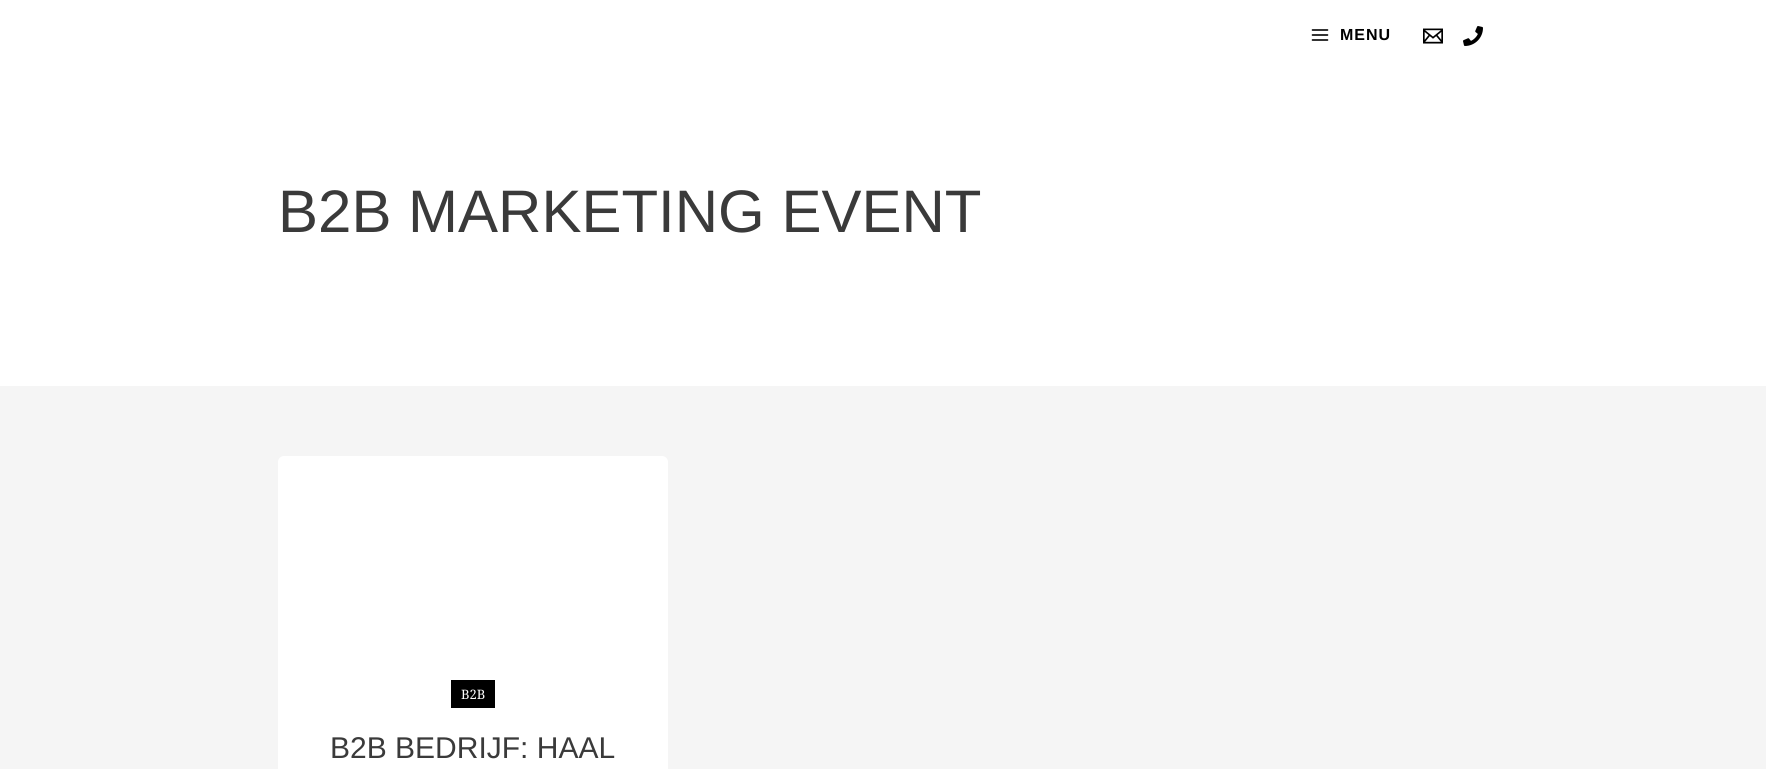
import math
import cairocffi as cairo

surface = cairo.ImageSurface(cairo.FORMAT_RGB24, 1766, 769)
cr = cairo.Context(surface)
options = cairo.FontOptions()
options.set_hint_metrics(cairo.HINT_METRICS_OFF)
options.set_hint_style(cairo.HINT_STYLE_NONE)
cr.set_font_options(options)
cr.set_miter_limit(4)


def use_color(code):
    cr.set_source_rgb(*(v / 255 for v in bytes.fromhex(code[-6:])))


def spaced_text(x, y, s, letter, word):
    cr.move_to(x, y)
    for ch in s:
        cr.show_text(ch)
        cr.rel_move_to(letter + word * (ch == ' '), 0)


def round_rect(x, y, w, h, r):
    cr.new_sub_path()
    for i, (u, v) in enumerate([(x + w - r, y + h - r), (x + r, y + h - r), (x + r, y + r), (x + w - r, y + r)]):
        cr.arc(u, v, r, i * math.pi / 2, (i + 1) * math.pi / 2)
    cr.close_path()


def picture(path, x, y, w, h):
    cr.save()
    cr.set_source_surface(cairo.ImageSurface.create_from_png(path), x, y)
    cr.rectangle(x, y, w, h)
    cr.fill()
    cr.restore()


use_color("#ffffff")
cr.paint()
picture("img1.png", 1311, 29, 18, 12)
cr.select_font_face("Liberation Sans", cairo.FONT_SLANT_NORMAL, cairo.FONT_WEIGHT_BOLD)
cr.set_font_size(16)
use_color("#000000")
spaced_text(1340, 40, "MENU", 1, 0)
picture("img2.png", 1423, 28, 20, 16)
picture("img3.png", 1463, 26, 20, 20)
cr.select_font_face("Liberation Sans")
cr.set_font_size(60)
use_color("#3a3a3a")
cr.move_to(278, 232)
cr.show_text("B2B MARKETING EVENT")
use_color("#f5f5f5")
cr.rectangle(0, 386, 1766, 383)
cr.fill()
use_color("#ffffff")
round_rect(278, 456, 390, 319, 6)
cr.fill()
use_color("#000000")
cr.rectangle(451, 680, 44, 28)
cr.fill()
cr.select_font_face("Noto Serif")
cr.set_font_size(13)
use_color("#ffffff")
cr.move_to(461, 699)
cr.show_text("B2B")
cr.select_font_face("Liberation Sans")
cr.set_font_size(30)
use_color("#3a3a3a")
cr.move_to(330, 758)
cr.show_text("B2B BEDRIJF: HAAL")
surface.write_to_png("result.png")
